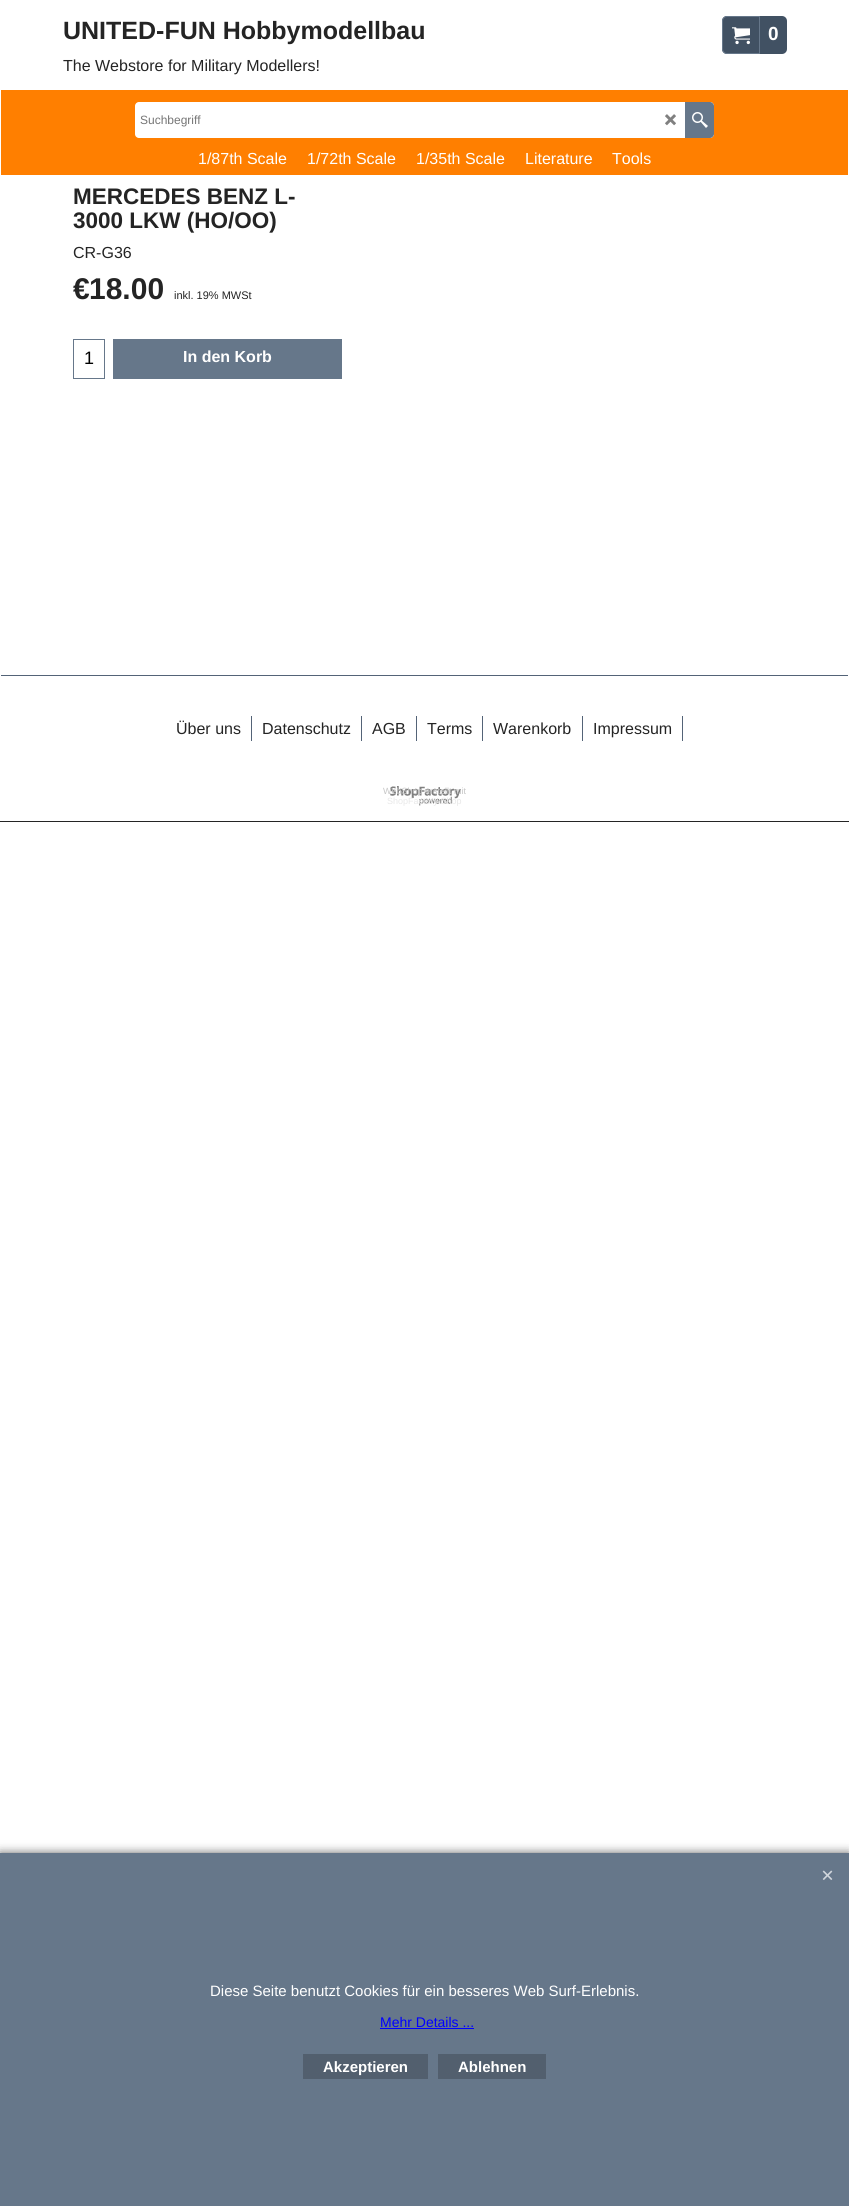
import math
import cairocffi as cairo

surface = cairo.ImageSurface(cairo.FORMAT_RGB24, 849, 2206)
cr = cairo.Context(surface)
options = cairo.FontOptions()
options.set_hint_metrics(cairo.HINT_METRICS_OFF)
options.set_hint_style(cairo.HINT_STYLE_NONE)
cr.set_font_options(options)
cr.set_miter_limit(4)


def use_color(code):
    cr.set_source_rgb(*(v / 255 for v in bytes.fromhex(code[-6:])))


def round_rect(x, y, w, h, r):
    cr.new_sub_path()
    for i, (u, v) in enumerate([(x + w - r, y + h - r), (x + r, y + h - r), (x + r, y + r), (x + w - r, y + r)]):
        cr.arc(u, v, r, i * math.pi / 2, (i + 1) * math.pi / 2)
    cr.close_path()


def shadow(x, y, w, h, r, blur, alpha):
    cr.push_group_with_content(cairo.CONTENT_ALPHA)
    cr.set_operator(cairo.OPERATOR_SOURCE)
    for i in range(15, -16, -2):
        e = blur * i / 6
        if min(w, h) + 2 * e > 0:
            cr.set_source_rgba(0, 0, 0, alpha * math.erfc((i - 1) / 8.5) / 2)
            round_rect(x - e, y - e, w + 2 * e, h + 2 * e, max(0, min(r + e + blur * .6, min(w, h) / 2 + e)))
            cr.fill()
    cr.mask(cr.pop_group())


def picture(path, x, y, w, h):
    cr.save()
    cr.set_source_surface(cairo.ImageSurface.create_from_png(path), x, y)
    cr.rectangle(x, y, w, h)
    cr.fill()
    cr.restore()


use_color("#ffffff")
cr.paint()
use_color("#ff7f00")
cr.rectangle(1, 90, 847, 85)
cr.fill()
cr.select_font_face("Liberation Sans", cairo.FONT_SLANT_NORMAL, cairo.FONT_WEIGHT_BOLD)
cr.set_font_size(25)
use_color("#242424")
cr.move_to(63, 39)
cr.show_text("UNITED-FUN Hobbymodellbau")
cr.select_font_face("Liberation Sans")
cr.set_font_size(16)
cr.move_to(63, 71)
cr.show_text("The Webstore for Military Modellers!")
use_color("#415163")
round_rect(722, 16, 65, 38, 5)
cr.fill()
cr.new_path()
cr.move_to(727, 16.5)
cr.line_to(759.5, 16.5)
cr.line_to(759.5, 53.5)
cr.line_to(727, 53.5)
cr.curve_to(724.5, 53.5, 722.5, 51.5, 722.5, 49)
cr.line_to(722.5, 21)
cr.curve_to(722.5, 18.5, 724.5, 16.5, 727, 16.5)
cr.close_path()
use_color("#66778a")
cr.set_line_width(1)
cr.stroke()
picture("img1.png", 732, 27, 18, 18)
cr.select_font_face("Liberation Sans", cairo.FONT_SLANT_NORMAL, cairo.FONT_WEIGHT_BOLD)
cr.set_font_size(19)
use_color("#ffffff")
cr.move_to(768, 40)
cr.show_text("0")
round_rect(135, 102, 579, 36, 4)
cr.fill()
cr.select_font_face("Liberation Sans")
cr.set_font_size(12)
use_color("#757575")
cr.move_to(140, 124)
cr.show_text("Suchbegriff")
picture("img2.png", 665, 114, 11, 12)
use_color("#66778a")
cr.new_path()
cr.move_to(685, 102)
cr.line_to(710, 102)
cr.curve_to(712, 102, 714, 104, 714, 106)
cr.line_to(714, 134)
cr.curve_to(714, 136, 712, 138, 710, 138)
cr.line_to(685, 138)
cr.close_path()
cr.fill()
picture("img3.png", 692, 112, 16, 16)
cr.set_font_size(16)
use_color("#ffffff")
cr.move_to(198, 164)
cr.show_text("1/87th Scale")
cr.move_to(307, 164)
cr.show_text("1/72th Scale")
cr.move_to(416, 164)
cr.show_text("1/35th Scale")
cr.move_to(525, 164)
cr.show_text("Literature")
cr.move_to(612, 164)
cr.show_text("Tools")
cr.select_font_face("Liberation Sans", cairo.FONT_SLANT_NORMAL, cairo.FONT_WEIGHT_BOLD)
cr.set_font_size(22.5)
use_color("#242424")
cr.move_to(73, 204)
cr.show_text("MERCEDES BENZ L-")
cr.move_to(73, 228)
cr.show_text("3000 LKW (HO/OO)")
cr.select_font_face("Liberation Sans")
cr.set_font_size(16)
cr.move_to(73, 258)
cr.show_text("CR-G36")
cr.save()
cr.rectangle(73, 277, 269, 29)
cr.clip()
cr.select_font_face("Liberation Sans", cairo.FONT_SLANT_NORMAL, cairo.FONT_WEIGHT_BOLD)
cr.set_font_size(30)
cr.move_to(73, 299)
cr.show_text("€")
cr.restore()
cr.select_font_face("Liberation Sans", cairo.FONT_SLANT_NORMAL, cairo.FONT_WEIGHT_BOLD)
cr.set_font_size(30)
cr.move_to(89, 299)
cr.show_text("18.00")
cr.select_font_face("Liberation Sans")
cr.set_font_size(11)
cr.move_to(174, 299)
cr.show_text("inkl. 19% MWSt")
use_color("#66778a")
cr.rectangle(73, 339, 32, 40)
cr.fill()
use_color("#ffffff")
cr.rectangle(74, 340, 30, 38)
cr.fill()
cr.set_font_size(18)
use_color("#000000")
cr.move_to(84, 364)
cr.show_text("1")
use_color("#66778a")
cr.rectangle(113, 339, 229, 40)
cr.fill()
cr.select_font_face("Liberation Sans", cairo.FONT_SLANT_NORMAL, cairo.FONT_WEIGHT_BOLD)
cr.set_font_size(16)
use_color("#ffffff")
cr.move_to(183, 362)
cr.show_text("In den Korb")
use_color("#536377")
cr.rectangle(1, 675, 847, 1)
cr.fill()
cr.select_font_face("Liberation Sans")
use_color("#242424")
cr.move_to(176, 734)
cr.show_text("Über uns")
use_color("#536377")
cr.rectangle(251, 716, 1, 25)
cr.fill()
use_color("#242424")
cr.move_to(262, 734)
cr.show_text("Datenschutz")
use_color("#536377")
cr.rectangle(361, 716, 1, 25)
cr.fill()
use_color("#242424")
cr.move_to(372, 734)
cr.show_text("AGB")
use_color("#536377")
cr.rectangle(416, 716, 1, 25)
cr.fill()
use_color("#242424")
cr.move_to(427, 734)
cr.show_text("Terms")
use_color("#536377")
cr.rectangle(482, 716, 1, 25)
cr.fill()
use_color("#242424")
cr.move_to(493, 734)
cr.show_text("Warenkorb")
use_color("#536377")
cr.rectangle(582, 716, 1, 25)
cr.fill()
use_color("#242424")
cr.move_to(593, 734)
cr.show_text("Impressum")
use_color("#536377")
cr.rectangle(682, 716, 1, 25)
cr.fill()
picture("img4.png", 390, 786, 71, 20)
cr.set_font_size(9)
use_color("#c6c6c6")
cr.move_to(383, 794)
cr.show_text("WebShop erstellt mit")
use_color("#e8e8e8")
cr.move_to(387, 804)
cr.show_text("ShopFactory Shop")
use_color("#242424")
cr.rectangle(0, 821, 849, 1)
cr.fill()
use_color("#666666")
shadow(0, 1853, 849, 353, 0, 5, 1)
use_color("#66778a")
cr.rectangle(0, 1853, 849, 353)
cr.fill()
picture("img5.png", 822, 1870, 11, 10)
cr.set_font_size(15)
use_color("#ffffff")
cr.move_to(210, 1996)
cr.show_text("Diese Seite benutzt Cookies für ein besseres Web Surf-Erlebnis.")
cr.set_font_size(14)
use_color("#0000ff")
cr.move_to(380, 2027)
cr.show_text("Mehr Details ...")
cr.rectangle(380, 2028, 94, 1)
cr.fill()
use_color("#525f6e")
cr.rectangle(303, 2054, 125, 25)
cr.fill()
cr.select_font_face("Liberation Sans", cairo.FONT_SLANT_NORMAL, cairo.FONT_WEIGHT_BOLD)
cr.set_font_size(15)
use_color("#ffffff")
cr.move_to(323, 2072)
cr.show_text("Akzeptieren")
use_color("#525f6e")
cr.rectangle(438, 2054, 108, 25)
cr.fill()
use_color("#ffffff")
cr.move_to(458, 2072)
cr.show_text("Ablehnen")
surface.write_to_png("result.png")
